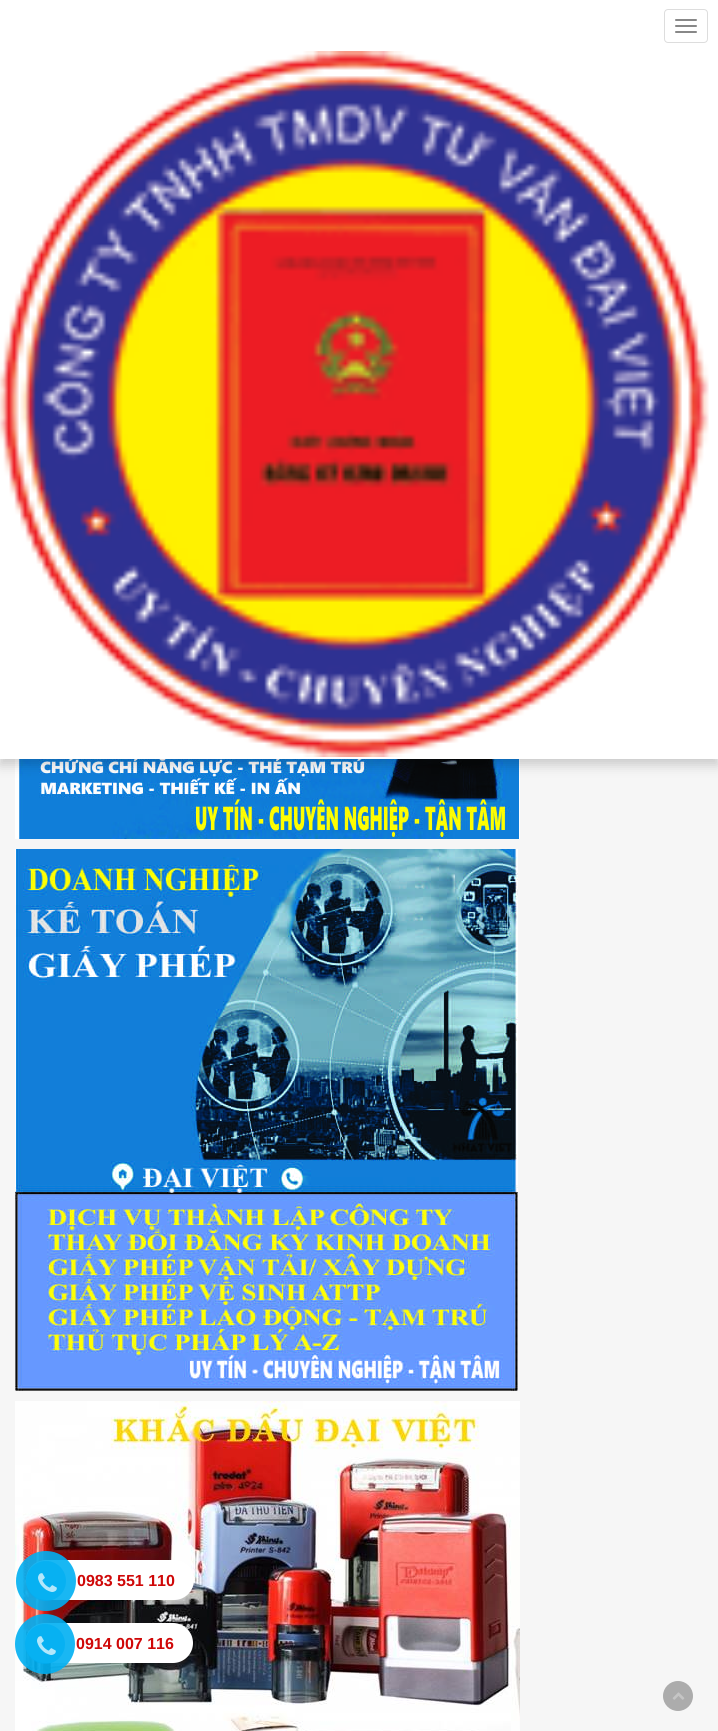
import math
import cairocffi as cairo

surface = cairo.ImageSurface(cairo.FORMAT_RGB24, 718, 1731)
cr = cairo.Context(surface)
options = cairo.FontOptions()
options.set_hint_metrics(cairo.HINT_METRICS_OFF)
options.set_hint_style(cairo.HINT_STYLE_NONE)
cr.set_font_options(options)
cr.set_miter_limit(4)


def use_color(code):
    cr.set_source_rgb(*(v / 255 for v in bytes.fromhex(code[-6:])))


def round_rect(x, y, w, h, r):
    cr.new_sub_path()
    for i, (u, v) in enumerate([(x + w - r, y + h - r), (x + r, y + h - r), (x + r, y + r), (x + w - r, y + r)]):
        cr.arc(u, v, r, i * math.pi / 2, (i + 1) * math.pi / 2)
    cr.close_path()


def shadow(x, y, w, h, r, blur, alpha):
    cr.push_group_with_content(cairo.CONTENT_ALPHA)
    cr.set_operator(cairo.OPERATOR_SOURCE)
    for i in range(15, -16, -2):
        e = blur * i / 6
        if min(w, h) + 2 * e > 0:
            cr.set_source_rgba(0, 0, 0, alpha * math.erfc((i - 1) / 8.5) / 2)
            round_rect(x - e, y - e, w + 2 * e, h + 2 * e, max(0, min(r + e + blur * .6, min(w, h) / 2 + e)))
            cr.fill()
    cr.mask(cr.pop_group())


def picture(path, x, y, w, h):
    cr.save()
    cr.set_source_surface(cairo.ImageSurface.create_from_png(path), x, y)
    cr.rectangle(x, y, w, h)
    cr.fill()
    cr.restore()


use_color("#f6f6f6")
cr.paint()
picture("img3.png", 15, 759, 505, 80)
use_color("#000000")
shadow(0, 6, 718, 759, 0, 6, 0.18)
use_color("#ffffff")
cr.rectangle(0, 0, 718, 759)
cr.fill()
round_rect(664.5, 9.5, 43, 33, 3.5)
use_color("#dddddd")
cr.set_line_width(1)
cr.stroke()
use_color("#888888")
round_rect(675, 19, 22, 2, 1)
cr.fill()
round_rect(675, 25, 22, 2, 1)
cr.fill()
round_rect(675, 31, 22, 2, 1)
cr.fill()
picture("img1.png", 0, 51, 709, 706)
use_color("#acacac")
cr.arc(678, 1696, 15, 0, 2 * math.pi)
cr.fill()
picture("img2.png", 672, 1692, 13, 8)
picture("img4.png", 15, 849, 503, 542)
picture("img5.png", 15, 1401, 505, 330)
use_color("#ffffff")
round_rect(26, 1560, 168, 40, 20)
cr.fill()
cr.set_source_rgba(0, 0.686, 0.949, 0.9)
cr.arc(46, 1581, 30, 0, 2 * math.pi)
cr.fill()
cr.set_source_rgba(0, 0.686, 0.949, 0.7)
cr.arc(46, 1581, 20, 0, 2 * math.pi)
cr.fill()
picture("img6.png", 38, 1573, 19, 19)
cr.select_font_face("Liberation Sans", cairo.FONT_SLANT_NORMAL, cairo.FONT_WEIGHT_BOLD)
cr.set_font_size(16)
use_color("#cf0808")
cr.move_to(77, 1586)
cr.show_text("0983 551 110")
use_color("#ffffff")
round_rect(25, 1623, 168, 40, 20)
cr.fill()
cr.set_source_rgba(0, 0.686, 0.949, 0.9)
cr.arc(45, 1644, 30, 0, 2 * math.pi)
cr.fill()
cr.set_source_rgba(0, 0.686, 0.949, 0.7)
cr.arc(45, 1644, 20, 0, 2 * math.pi)
cr.fill()
picture("img6.png", 37, 1636, 19, 19)
use_color("#cf0808")
cr.move_to(76, 1649)
cr.show_text("0914 007 116")
surface.write_to_png("result.png")
